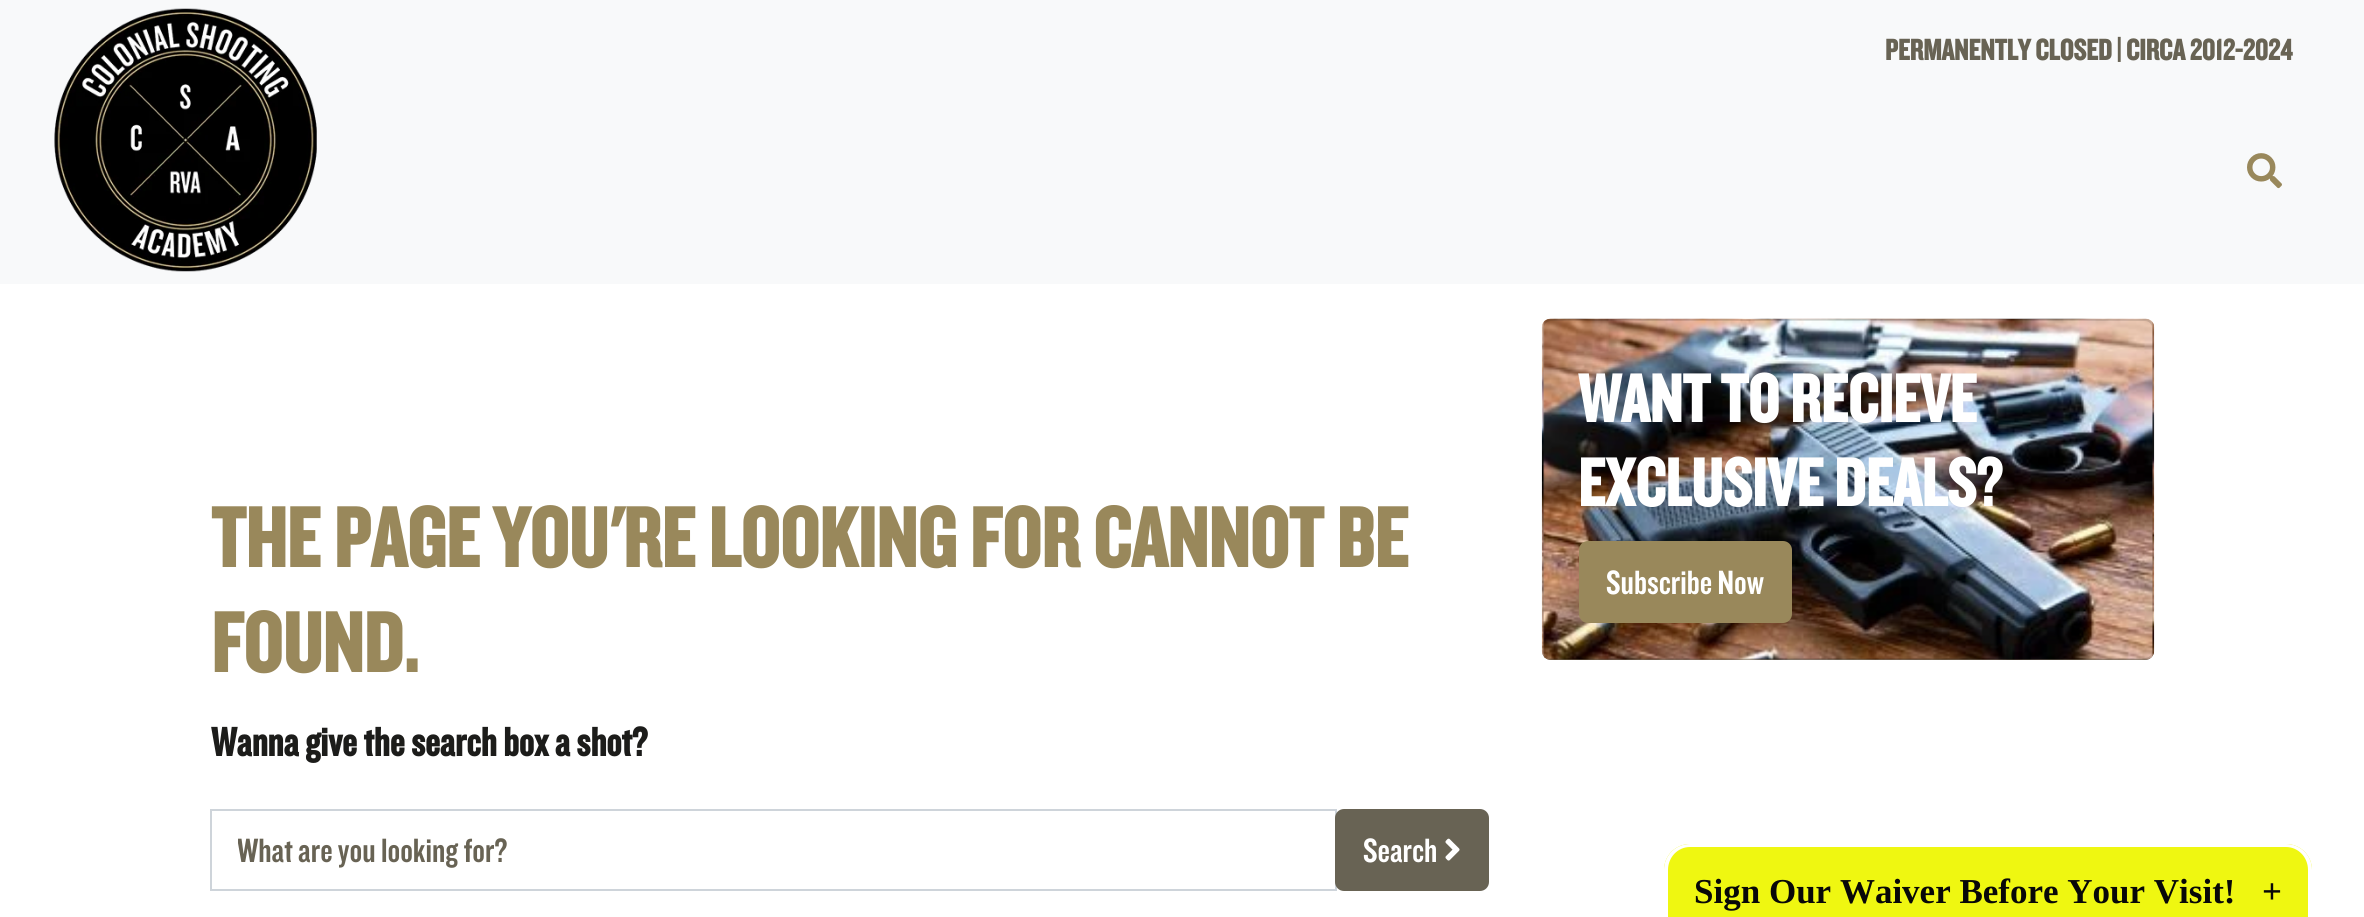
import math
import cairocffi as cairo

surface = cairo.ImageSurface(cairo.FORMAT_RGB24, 2364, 917)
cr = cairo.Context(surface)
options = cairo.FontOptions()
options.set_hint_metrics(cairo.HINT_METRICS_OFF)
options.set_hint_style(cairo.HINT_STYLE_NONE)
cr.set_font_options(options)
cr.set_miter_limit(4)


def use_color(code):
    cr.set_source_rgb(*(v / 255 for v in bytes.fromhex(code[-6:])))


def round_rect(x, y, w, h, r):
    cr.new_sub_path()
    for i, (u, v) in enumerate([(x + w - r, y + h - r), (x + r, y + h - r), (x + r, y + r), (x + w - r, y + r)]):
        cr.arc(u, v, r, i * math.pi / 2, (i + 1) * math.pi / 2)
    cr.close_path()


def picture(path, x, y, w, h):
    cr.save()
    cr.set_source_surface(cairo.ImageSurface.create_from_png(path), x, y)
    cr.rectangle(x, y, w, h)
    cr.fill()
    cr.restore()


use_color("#ffffff")
cr.paint()
use_color("#f8f9fa")
cr.rectangle(0, 0, 2364, 284)
cr.fill()
picture("img1.png", 54, 8, 263, 264)
cr.select_font_face("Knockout", cairo.FONT_SLANT_NORMAL, cairo.FONT_WEIGHT_BOLD)
cr.set_font_size(30.6)
use_color("#686354")
cr.move_to(1885, 60)
cr.show_text("PERMANENTLY CLOSED | CIRCA 2012-2024")
picture("img2.png", 2247, 153, 35, 36)
round_rect(1542, 319, 612, 341, 9)
cr.fill()
picture("img3.png", 1541, 318, 614, 342)
round_rect(1543, 320, 610, 339, 8)
cr.set_source_rgba(0, 0, 0, 0.12)
cr.stroke()
cr.set_font_size(70)
use_color("#ffffff")
cr.move_to(1578, 422)
cr.show_text("WANT TO RECIEVE")
cr.move_to(1578, 506)
cr.show_text("EXCLUSIVE DEALS?")
use_color("#99885b")
round_rect(1580, 542, 211, 80, 8)
cr.fill_preserve()
cr.stroke()
cr.select_font_face("Knockout")
cr.set_font_size(35)
use_color("#ffffff")
cr.move_to(1606, 594)
cr.show_text("Subscribe Now")
cr.select_font_face("Knockout", cairo.FONT_SLANT_NORMAL, cairo.FONT_WEIGHT_BOLD)
cr.set_font_size(87.5)
use_color("#99885b")
cr.move_to(211, 567)
cr.show_text("THE PAGE YOU'RE LOOKING FOR CANNOT BE")
cr.move_to(211, 672)
cr.show_text("FOUND.")
cr.set_font_size(42)
use_color("#1c1c1a")
cr.move_to(211, 756)
cr.show_text("Wanna give the search box a shot?")
cr.rectangle(211, 810, 1125, 80)
use_color("#ced4da")
cr.stroke()
cr.save()
cr.rectangle(238, 830, 1071, 42)
cr.clip()
cr.select_font_face("Knockout")
cr.set_font_size(35)
use_color("#686354")
cr.move_to(237, 862)
cr.show_text("What are you looking for?")
cr.restore()
use_color("#686354")
round_rect(1336, 810, 152, 80, 8)
cr.fill_preserve()
cr.stroke()
cr.select_font_face("Knockout")
cr.set_font_size(35)
use_color("#ffffff")
cr.move_to(1363, 862)
cr.show_text("Search")
picture("img4.png", 1445, 838, 15, 23)
use_color("#eff711")
cr.new_path()
cr.move_to(1690, 844)
cr.line_to(2286, 844)
cr.curve_to(2300.5, 844, 2312, 855.5, 2312, 870)
cr.line_to(2312, 917)
cr.line_to(1664, 917)
cr.line_to(1664, 870)
cr.curve_to(1664, 855.5, 1675.5, 844, 1690, 844)
cr.close_path()
cr.fill()
use_color("#ffffff")
cr.set_fill_rule(cairo.FILL_RULE_EVEN_ODD)
cr.new_path()
cr.move_to(1690, 844)
cr.line_to(2286, 844)
cr.curve_to(2300, 844, 2312, 855, 2312, 870)
cr.line_to(2312, 917)
cr.line_to(1664, 917)
cr.line_to(1664, 870)
cr.curve_to(1664, 855, 1676, 844, 1690, 844)
cr.close_path()
cr.move_to(1690, 847)
cr.line_to(2286, 847)
cr.curve_to(2298, 847, 2308, 857, 2308, 870)
cr.line_to(2308, 917)
cr.line_to(1668, 917)
cr.line_to(1668, 870)
cr.curve_to(1668, 857, 1678, 847, 1690, 847)
cr.close_path()
cr.fill()
cr.select_font_face("Liberation Serif", cairo.FONT_SLANT_NORMAL, cairo.FONT_WEIGHT_BOLD)
use_color("#080808")
cr.move_to(1694, 903)
cr.show_text("Sign Our Waiver Before Your Visit!")
cr.move_to(2262, 903)
cr.show_text("+")
surface.write_to_png("result.png")
